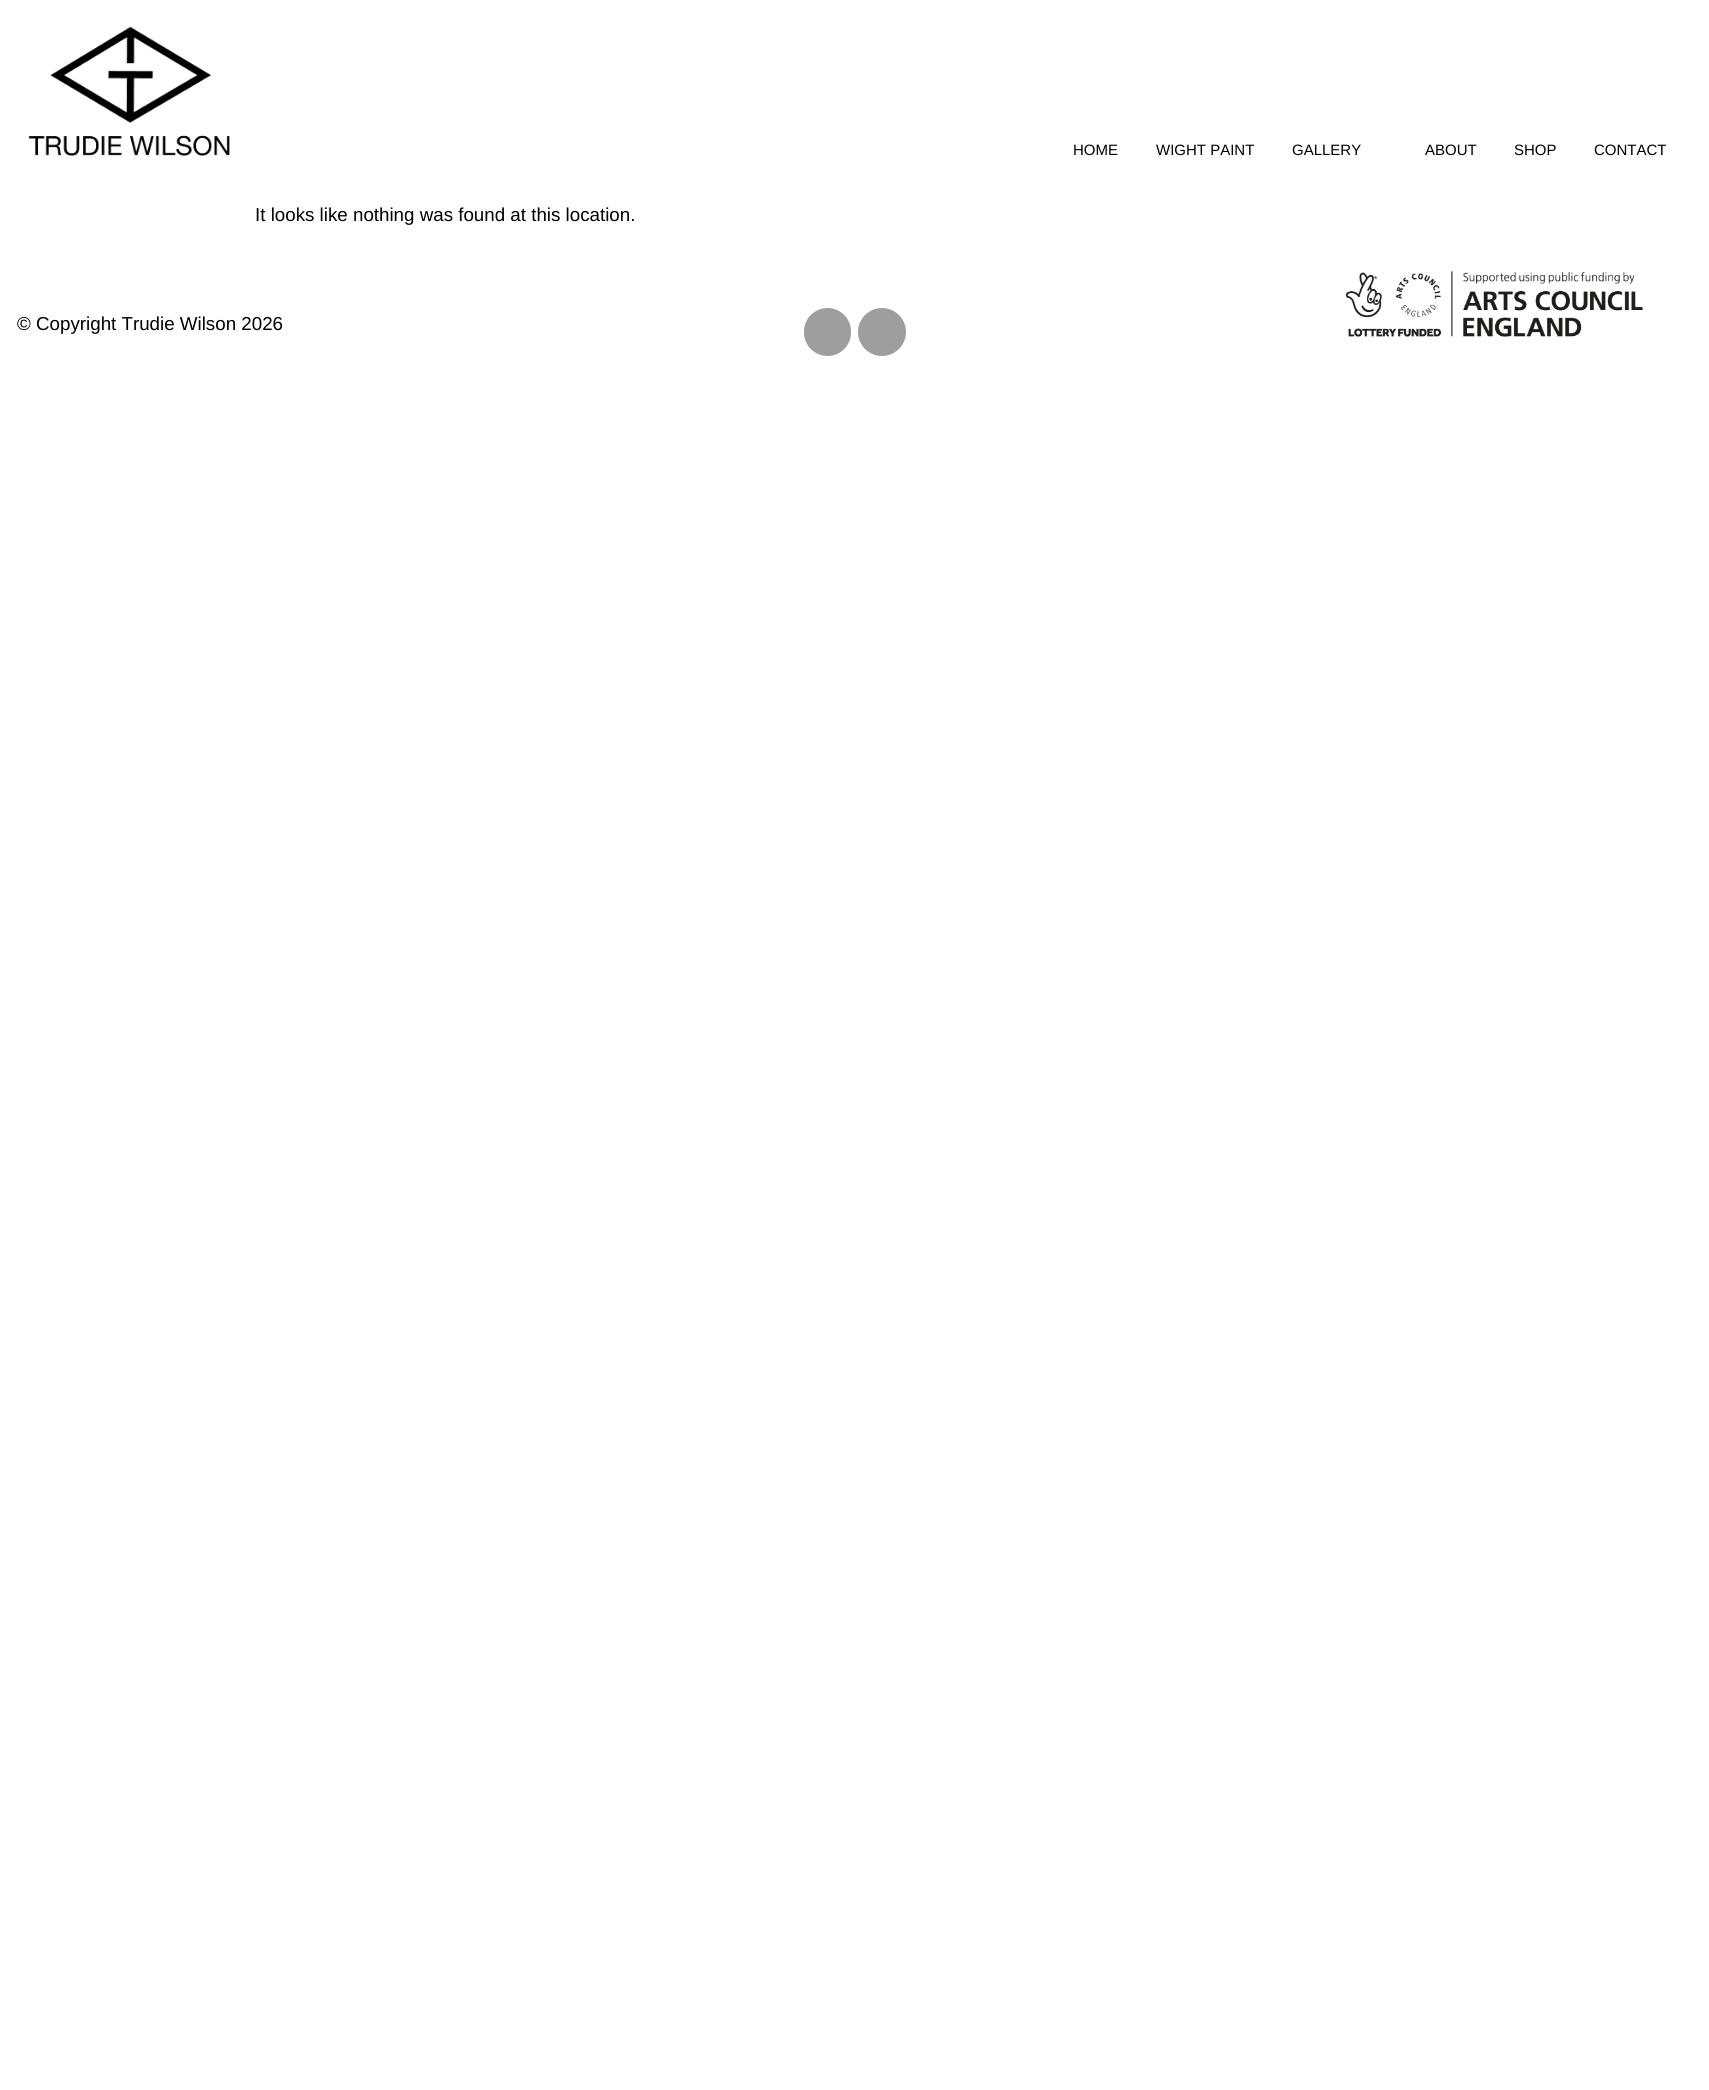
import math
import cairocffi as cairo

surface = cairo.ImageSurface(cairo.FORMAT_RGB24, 1709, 2090)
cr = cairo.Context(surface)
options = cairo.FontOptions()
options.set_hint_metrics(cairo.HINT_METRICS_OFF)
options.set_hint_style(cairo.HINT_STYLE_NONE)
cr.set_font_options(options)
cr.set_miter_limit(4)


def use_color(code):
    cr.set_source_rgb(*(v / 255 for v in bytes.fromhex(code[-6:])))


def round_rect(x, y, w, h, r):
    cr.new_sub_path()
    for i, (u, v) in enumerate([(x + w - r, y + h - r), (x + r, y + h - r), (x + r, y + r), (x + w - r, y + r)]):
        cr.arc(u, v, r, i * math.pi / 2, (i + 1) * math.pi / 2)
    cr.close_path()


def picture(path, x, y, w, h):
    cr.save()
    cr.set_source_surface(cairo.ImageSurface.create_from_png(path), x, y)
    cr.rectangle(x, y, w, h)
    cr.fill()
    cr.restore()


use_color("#ffffff")
cr.paint()
picture("img1.png", 28, 26, 202, 130)
cr.select_font_face("Liberation Sans")
cr.set_font_size(15)
use_color("#000000")
cr.move_to(1073, 155)
cr.show_text("HOME")
cr.move_to(1156, 155)
cr.show_text("WIGHT PAINT")
cr.move_to(1292, 155)
cr.show_text("GALLERY")
cr.move_to(1425, 155)
cr.show_text("ABOUT")
cr.move_to(1514, 155)
cr.show_text("SHOP")
cr.move_to(1594, 155)
cr.show_text("CONTACT")
cr.set_font_size(18.75)
cr.move_to(255, 221)
cr.show_text("It looks like nothing was found at this location.")
cr.move_to(17, 330)
cr.show_text("© Copyright Trudie Wilson 2026")
use_color("#9e9e9e")
round_rect(804, 308, 47, 48, 23.5)
cr.fill()
cr.arc(882, 332, 24, 0, 2 * math.pi)
cr.fill()
picture("img2.png", 1345, 271, 298, 66)
surface.write_to_png("result.png")
